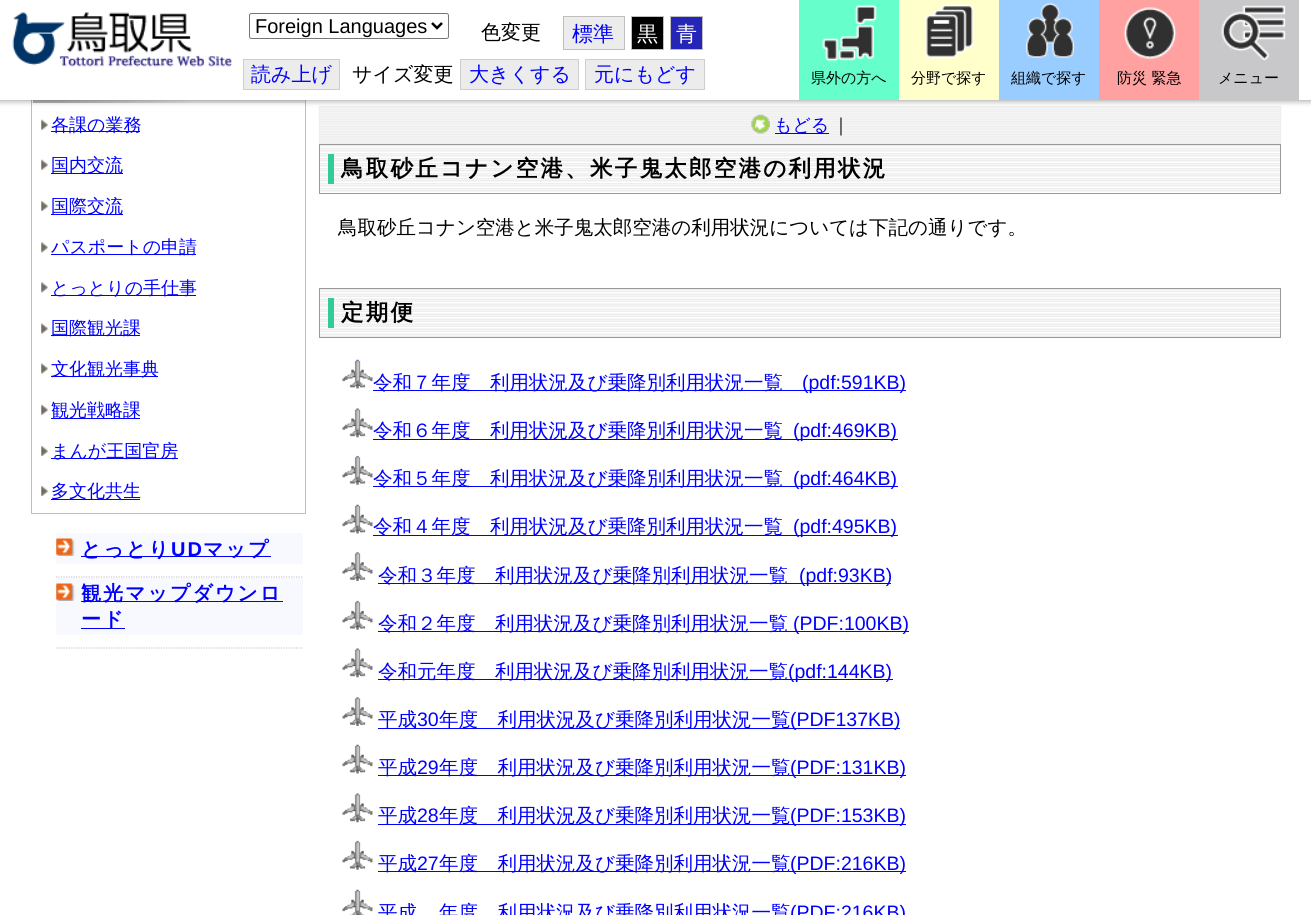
import math
import cairocffi as cairo

surface = cairo.ImageSurface(cairo.FORMAT_RGB24, 1311, 915)
cr = cairo.Context(surface)
options = cairo.FontOptions()
options.set_hint_metrics(cairo.HINT_METRICS_OFF)
options.set_hint_style(cairo.HINT_STYLE_NONE)
cr.set_font_options(options)
cr.set_miter_limit(4)


def use_color(code):
    cr.set_source_rgb(*(v / 255 for v in bytes.fromhex(code[-6:])))


def spaced_text(x, y, s, letter, word):
    cr.move_to(x, y)
    for ch in s:
        cr.show_text(ch)
        cr.rel_move_to(letter + word * (ch == ' '), 0)


def round_rect(x, y, w, h, r):
    cr.new_sub_path()
    for i, (u, v) in enumerate([(x + w - r, y + h - r), (x + r, y + h - r), (x + r, y + r), (x + w - r, y + r)]):
        cr.arc(u, v, r, i * math.pi / 2, (i + 1) * math.pi / 2)
    cr.close_path()


def shadow(x, y, w, h, r, blur, alpha):
    cr.push_group_with_content(cairo.CONTENT_ALPHA)
    cr.set_operator(cairo.OPERATOR_SOURCE)
    for i in range(15, -16, -2):
        e = blur * i / 6
        if min(w, h) + 2 * e > 0:
            cr.set_source_rgba(0, 0, 0, alpha * math.erfc((i - 1) / 8.5) / 2)
            round_rect(x - e, y - e, w + 2 * e, h + 2 * e, max(0, min(r + e + blur * .6, min(w, h) / 2 + e)))
            cr.fill()
    cr.mask(cr.pop_group())


def picture(path, x, y, w, h):
    cr.save()
    cr.set_source_surface(cairo.ImageSurface.create_from_png(path), x, y)
    cr.rectangle(x, y, w, h)
    cr.fill()
    cr.restore()


use_color("#ffffff")
cr.paint()
cr.rectangle(31.5, 28.5, 274, 485)
use_color("#bfbfbf")
cr.set_line_width(1)
cr.stroke()
gradient = cairo.LinearGradient(33, 96, 305, 96)
gradient.add_color_stop_rgba(0, 0.71, 0.71, 0.71, 1)
gradient.add_color_stop_rgba(0.1, 0.71, 0.71, 0.71, 1)
gradient.add_color_stop_rgba(0.6, 0.922, 0.925, 0.925, 1)
gradient.add_color_stop_rgba(1, 0.922, 0.925, 0.925, 1)
cr.set_source(gradient)
cr.rectangle(33, 100, 272, 3)
cr.fill()
picture("img13.png", 318, 106, 964, 38)
cr.rectangle(319.5, 106.5, 961, 37)
use_color("#eeeeee")
cr.stroke()
use_color("#000000")
shadow(-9, 1, 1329, 100, 0, 3, 0.1)
shadow(-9, 1, 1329, 100, 0, 3, 0.1)
shadow(-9, 1, 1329, 100, 0, 3, 0.1)
shadow(-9, 1, 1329, 100, 0, 3, 0.1)
use_color("#ffffff")
cr.rectangle(0, 0, 1311, 100)
cr.fill()
picture("img1.png", 12, 12, 220, 55)
round_rect(249.5, 13.5, 199, 25, 2)
use_color("#767676")
cr.stroke()
cr.new_path()
cr.move_to(432, 23)
cr.line_to(437, 28)
cr.line_to(442, 23)
use_color("#000000")
cr.set_line_width(2.5)
cr.stroke()
cr.select_font_face("Liberation Sans")
cr.set_font_size(20)
cr.move_to(255, 33)
cr.show_text("Foreign Languages")
cr.select_font_face("WenQuanYi Zen Hei Medium")
cr.move_to(481, 39)
cr.show_text("色変更")
use_color("#ececec")
cr.rectangle(563.5, 16.5, 61, 33)
cr.fill_preserve()
use_color("#bfbfbf")
cr.set_line_width(1)
cr.stroke()
cr.set_font_size(21)
use_color("#0000ff")
cr.move_to(572, 41)
cr.show_text("標準")
use_color("#000000")
cr.rectangle(631.5, 16.5, 32, 33)
cr.fill_preserve()
use_color("#bfbfbf")
cr.stroke()
use_color("#ffffff")
cr.move_to(637, 41)
cr.show_text("黒")
use_color("#2525b8")
cr.rectangle(670.5, 16.5, 32, 33)
cr.fill_preserve()
use_color("#bfbfbf")
cr.stroke()
use_color("#ffffff")
cr.move_to(676, 41)
cr.show_text("青")
use_color("#ececec")
cr.rectangle(243.5, 59.5, 96, 30)
cr.fill_preserve()
use_color("#cecece")
cr.stroke()
cr.set_font_size(20)
use_color("#0000ff")
cr.move_to(251, 81)
cr.show_text("読み上げ")
use_color("#000000")
cr.move_to(352, 81)
cr.show_text("サイズ変更")
use_color("#ececec")
cr.rectangle(461, 60, 117, 29)
cr.fill()
use_color("#0000ff")
cr.move_to(469, 81)
cr.show_text("大きくする")
use_color("#cecece")
cr.rectangle(460, 59, 119, 1)
cr.fill()
cr.rectangle(460, 89, 29, 1)
cr.fill()
cr.rectangle(460, 59, 1, 31)
cr.fill()
cr.rectangle(578, 59, 1, 31)
cr.fill()
cr.rectangle(489, 89, 90, 1)
cr.fill()
use_color("#ececec")
cr.rectangle(586, 60, 118, 29)
cr.fill()
use_color("#0000ff")
cr.move_to(594, 81)
cr.show_text("元にもどす")
use_color("#cecece")
cr.rectangle(585, 59, 120, 1)
cr.fill()
cr.rectangle(585, 89, 29, 1)
cr.fill()
cr.rectangle(585, 59, 1, 31)
cr.fill()
cr.rectangle(704, 59, 1, 31)
cr.fill()
cr.rectangle(614, 89, 91, 1)
cr.fill()
use_color("#66ffcc")
cr.rectangle(799, 0, 100, 100)
cr.fill()
picture("img2.png", 822, 4, 55, 58)
cr.set_font_size(15)
use_color("#000000")
cr.move_to(811, 83)
cr.show_text("県外の方へ")
use_color("#ffffcc")
cr.rectangle(899, 0, 100, 100)
cr.fill()
picture("img3.png", 925, 4, 49, 55)
use_color("#000000")
cr.move_to(911, 83)
cr.show_text("分野で探す")
use_color("#99ccff")
cr.rectangle(999, 0, 100, 100)
cr.fill()
picture("img4.png", 1026, 2, 49, 56)
use_color("#000000")
cr.move_to(1011, 83)
cr.show_text("組織で探す")
use_color("#ffa1a1")
cr.rectangle(1099, 0, 100, 100)
cr.fill()
picture("img5.png", 1123, 7, 54, 52)
use_color("#000000")
cr.move_to(1117, 83)
cr.show_text("防災 緊急")
use_color("#c8c8cb")
cr.rectangle(1199, 0, 100, 100)
cr.fill()
picture("img6.png", 1221, 5, 65, 56)
use_color("#000000")
cr.move_to(1218, 83)
cr.show_text("メニュー")
picture("img7.png", 41, 119, 7, 11)
use_color("#0000ff")
cr.rectangle(51, 131, 89, 1)
cr.fill()
cr.set_font_size(18)
cr.move_to(51, 131)
cr.show_text("各課の業務")
picture("img8.png", 41, 159, 7, 11)
cr.rectangle(51, 173, 72, 1)
cr.fill()
cr.move_to(51, 171)
cr.show_text("国内交流")
picture("img9.png", 41, 201, 7, 10)
cr.rectangle(51, 214, 72, 1)
cr.fill()
cr.move_to(51, 212)
cr.show_text("国際交流")
picture("img10.png", 41, 242, 7, 11)
cr.rectangle(51, 254, 145, 1)
cr.fill()
cr.move_to(51, 253)
cr.show_text("パスポートの申請")
picture("img10.png", 41, 282, 7, 11)
cr.rectangle(51, 295, 145, 1)
cr.fill()
cr.move_to(51, 294)
cr.show_text("とっとりの手仕事")
picture("img11.png", 41, 323, 7, 11)
cr.rectangle(51, 335, 89, 1)
cr.fill()
cr.move_to(51, 334)
cr.show_text("国際観光課")
picture("img11.png", 41, 363, 7, 11)
cr.rectangle(51, 376, 107, 1)
cr.fill()
cr.move_to(51, 375)
cr.show_text("文化観光事典")
picture("img8.png", 41, 404, 7, 11)
cr.rectangle(51, 418, 89, 1)
cr.fill()
cr.move_to(51, 416)
cr.show_text("観光戦略課")
picture("img9.png", 41, 446, 7, 10)
cr.rectangle(51, 458, 127, 1)
cr.fill()
cr.move_to(51, 457)
cr.show_text("まんが王国官房")
picture("img9.png", 41, 486, 7, 10)
cr.rectangle(51, 499, 89, 1)
cr.fill()
cr.move_to(51, 497)
cr.show_text("多文化共生")
use_color("#f8f8ff")
cr.rectangle(56, 533, 247, 31)
cr.fill()
picture("img12.png", 56, 538, 19, 18)
use_color("#0000ff")
cr.rectangle(81, 556, 190, 1)
cr.fill()
cr.select_font_face("WenQuanYi Zen Hei", cairo.FONT_SLANT_NORMAL, cairo.FONT_WEIGHT_BOLD)
cr.set_font_size(20)
spaced_text(81, 556, "とっとり", 2, 0)
cr.select_font_face("Liberation Sans", cairo.FONT_SLANT_NORMAL, cairo.FONT_WEIGHT_BOLD)
spaced_text(171, 556, "UD", 2, 0)
cr.select_font_face("WenQuanYi Zen Hei", cairo.FONT_SLANT_NORMAL, cairo.FONT_WEIGHT_BOLD)
spaced_text(203, 556, "マップ", 2, 0)
cr.new_path()
cr.move_to(56, 577)
cr.line_to(302.5, 577)
use_color("#cccccc")
cr.set_line_width(1.2)
cr.set_dash([1.25, 1.25])
cr.stroke()
use_color("#f8f8ff")
cr.rectangle(56, 578, 247, 57)
cr.fill()
picture("img12.png", 56, 583, 19, 18)
use_color("#0000ff")
cr.rectangle(81, 601, 202, 1)
cr.fill()
spaced_text(81, 600, "観光マップダウンロ", 2, 0)
cr.rectangle(81, 628, 44, 1)
cr.fill()
spaced_text(81, 626, "ード", 2, 0)
cr.new_path()
cr.move_to(56, 648)
cr.line_to(302.5, 648)
use_color("#cccccc")
cr.stroke()
picture("img14.png", 751, 114, 19, 20)
use_color("#0000ff")
cr.rectangle(775, 133, 54, 1)
cr.fill()
cr.select_font_face("WenQuanYi Zen Hei Medium")
cr.set_font_size(18)
cr.move_to(774, 131)
cr.show_text("もどる")
use_color("#000000")
cr.move_to(832, 131)
cr.show_text("｜")
picture("img15.png", 320, 145, 960, 47)
cr.rectangle(319.5, 144.5, 961, 49)
use_color("#999999")
cr.set_line_width(1)
cr.set_dash([])
cr.stroke()
use_color("#33cc99")
cr.rectangle(328, 154, 6, 30)
cr.fill()
cr.select_font_face("WenQuanYi Zen Hei", cairo.FONT_SLANT_NORMAL, cairo.FONT_WEIGHT_BOLD)
cr.set_font_size(22.5)
use_color("#000000")
spaced_text(341, 176, "鳥取砂丘コナン空港、米子鬼太郎空港の利用状況", 2.25, 0)
cr.select_font_face("WenQuanYi Zen Hei Medium")
cr.set_font_size(19.5)
cr.move_to(338, 234)
cr.show_text("鳥取砂丘コナン空港と米子鬼太郎空港の利用状況については下記の通りです。")
picture("img16.png", 320, 289, 960, 48)
cr.rectangle(319.5, 288.5, 961, 49)
use_color("#999999")
cr.stroke()
use_color("#33cc99")
cr.rectangle(328, 298, 6, 30)
cr.fill()
cr.select_font_face("WenQuanYi Zen Hei", cairo.FONT_SLANT_NORMAL, cairo.FONT_WEIGHT_BOLD)
cr.set_font_size(22.5)
use_color("#000000")
spaced_text(341, 320, "定期便", 2.25, 0)
picture("img17.png", 342, 359, 31, 30)
use_color("#0000ff")
cr.rectangle(373, 390, 533, 1)
cr.fill()
cr.select_font_face("WenQuanYi Zen Hei Medium")
cr.set_font_size(19.5)
cr.move_to(373, 389)
cr.show_text("令和７年度　利用状況及び乗降別利用状況一覧")
cr.select_font_face("Liberation Sans")
cr.move_to(802, 389)
cr.show_text("(pdf:591KB)")
picture("img18.png", 342, 408, 31, 30)
cr.rectangle(373, 439, 525, 1)
cr.fill()
cr.select_font_face("WenQuanYi Zen Hei Medium")
cr.move_to(373, 437)
cr.show_text("令和６年度　利用状況及び乗降別利用状況一覧")
cr.select_font_face("Liberation Sans")
cr.move_to(793, 437)
cr.show_text("(pdf:469KB)")
picture("img19.png", 342, 455, 31, 30)
cr.rectangle(373, 486, 525, 1)
cr.fill()
cr.select_font_face("WenQuanYi Zen Hei Medium")
cr.move_to(373, 485)
cr.show_text("令和５年度　利用状況及び乗降別利用状況一覧")
cr.select_font_face("Liberation Sans")
cr.move_to(793, 485)
cr.show_text("(pdf:464KB)")
picture("img17.png", 342, 504, 31, 30)
cr.rectangle(373, 535, 525, 1)
cr.fill()
cr.select_font_face("WenQuanYi Zen Hei Medium")
cr.move_to(373, 533)
cr.show_text("令和４年度　利用状況及び乗降別利用状況一覧")
cr.select_font_face("Liberation Sans")
cr.move_to(793, 533)
cr.show_text("(pdf:495KB)")
picture("img20.png", 342, 552, 31, 29)
cr.rectangle(378, 583, 513, 1)
cr.fill()
cr.select_font_face("WenQuanYi Zen Hei Medium")
cr.move_to(378, 582)
cr.show_text("令和３年度　利用状況及び乗降別利用状況一覧")
cr.select_font_face("Liberation Sans")
cr.move_to(799, 582)
cr.show_text("(pdf:93KB)")
picture("img21.png", 342, 600, 31, 30)
cr.rectangle(378, 631, 531, 1)
cr.fill()
cr.select_font_face("WenQuanYi Zen Hei Medium")
cr.move_to(378, 630)
cr.show_text("令和２年度　利用状況及び乗降別利用状況一覧")
cr.select_font_face("Liberation Sans")
cr.move_to(793, 630)
cr.show_text("(PDF:100KB)")
picture("img22.png", 342, 648, 31, 30)
cr.rectangle(378, 679, 515, 1)
cr.fill()
cr.select_font_face("WenQuanYi Zen Hei Medium")
cr.move_to(378, 678)
cr.show_text("令和元年度　利用状況及び乗降別利用状況一覧")
cr.select_font_face("Liberation Sans")
cr.move_to(788, 678)
cr.show_text("(pdf:144KB)")
picture("img20.png", 342, 697, 31, 29)
cr.rectangle(378, 728, 522, 1)
cr.fill()
cr.select_font_face("WenQuanYi Zen Hei Medium")
cr.move_to(378, 726)
cr.show_text("平成")
cr.select_font_face("Liberation Sans")
cr.move_to(417, 726)
cr.show_text("30")
cr.select_font_face("WenQuanYi Zen Hei Medium")
cr.move_to(439, 726)
cr.show_text("年度　利用状況及び乗降別利用状況一覧")
cr.select_font_face("Liberation Sans")
cr.move_to(790, 726)
cr.show_text("(PDF137KB)")
picture("img17.png", 342, 744, 31, 30)
cr.rectangle(378, 775, 528, 1)
cr.fill()
cr.select_font_face("WenQuanYi Zen Hei Medium")
cr.move_to(378, 774)
cr.show_text("平成")
cr.select_font_face("Liberation Sans")
cr.move_to(417, 774)
cr.show_text("29")
cr.select_font_face("WenQuanYi Zen Hei Medium")
cr.move_to(439, 774)
cr.show_text("年度　利用状況及び乗降別利用状況一覧")
cr.select_font_face("Liberation Sans")
cr.move_to(790, 774)
cr.show_text("(PDF:131KB)")
picture("img22.png", 342, 793, 31, 30)
cr.rectangle(378, 824, 528, 1)
cr.fill()
cr.select_font_face("WenQuanYi Zen Hei Medium")
cr.move_to(378, 822)
cr.show_text("平成")
cr.select_font_face("Liberation Sans")
cr.move_to(417, 822)
cr.show_text("28")
cr.select_font_face("WenQuanYi Zen Hei Medium")
cr.move_to(439, 822)
cr.show_text("年度　利用状況及び乗降別利用状況一覧")
cr.select_font_face("Liberation Sans")
cr.move_to(790, 822)
cr.show_text("(PDF:153KB)")
picture("img19.png", 342, 840, 31, 30)
cr.rectangle(378, 871, 528, 1)
cr.fill()
cr.select_font_face("WenQuanYi Zen Hei Medium")
cr.move_to(378, 870)
cr.show_text("平成")
cr.select_font_face("Liberation Sans")
cr.move_to(417, 870)
cr.show_text("27")
cr.select_font_face("WenQuanYi Zen Hei Medium")
cr.move_to(439, 870)
cr.show_text("年度　利用状況及び乗降別利用状況一覧")
cr.select_font_face("Liberation Sans")
cr.move_to(790, 870)
cr.show_text("(PDF:216KB)")
picture("img23.png", 342, 889, 31, 26)
cr.select_font_face("WenQuanYi Zen Hei Medium")
cr.move_to(378, 919)
cr.show_text("平成")
cr.move_to(439, 919)
cr.show_text("年度　利用状況及び乗降別利用状況一覧")
cr.select_font_face("Liberation Sans")
cr.move_to(790, 919)
cr.show_text("(PDF:216KB)")
surface.write_to_png("result.png")
